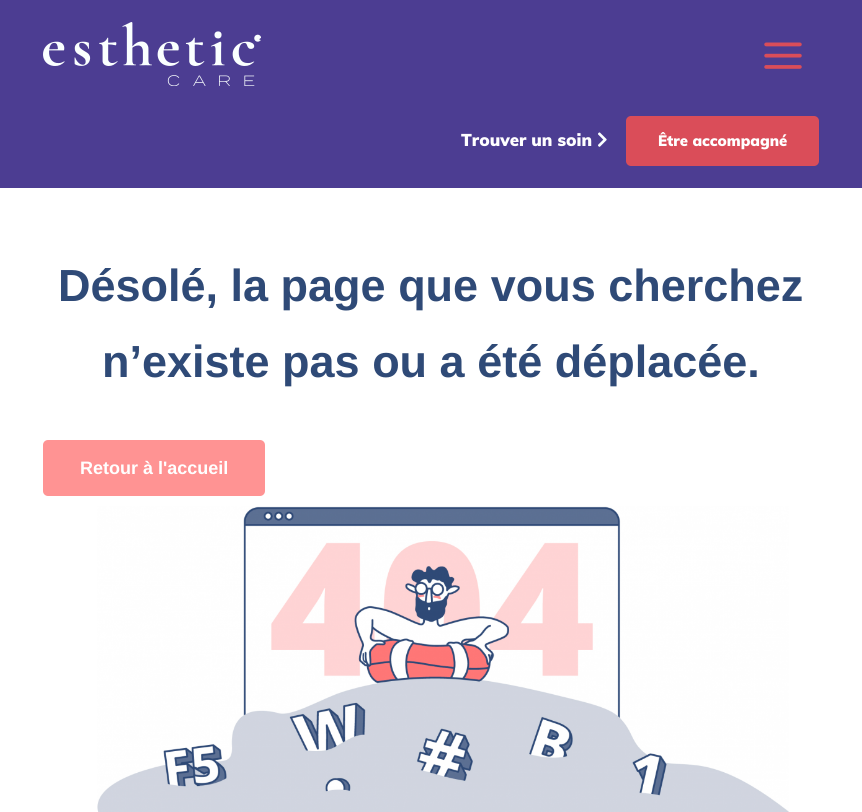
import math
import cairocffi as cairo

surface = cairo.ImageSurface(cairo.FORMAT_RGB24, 862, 812)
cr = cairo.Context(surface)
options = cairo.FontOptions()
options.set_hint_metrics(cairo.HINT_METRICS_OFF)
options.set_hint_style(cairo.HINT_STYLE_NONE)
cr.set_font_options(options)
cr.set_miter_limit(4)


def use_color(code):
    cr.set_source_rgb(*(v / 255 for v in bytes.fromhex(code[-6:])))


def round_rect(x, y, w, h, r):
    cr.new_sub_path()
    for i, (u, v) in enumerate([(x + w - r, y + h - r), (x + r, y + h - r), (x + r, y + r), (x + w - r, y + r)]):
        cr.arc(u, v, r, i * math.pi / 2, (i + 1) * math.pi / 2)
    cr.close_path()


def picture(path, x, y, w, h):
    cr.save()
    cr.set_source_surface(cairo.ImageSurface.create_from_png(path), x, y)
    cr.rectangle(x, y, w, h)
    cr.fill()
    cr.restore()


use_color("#ffffff")
cr.paint()
use_color("#4c3d92")
cr.rectangle(0, 0, 862, 188)
cr.fill()
picture("img1.png", 43, 22, 218, 64)
picture("img2.png", 764, 42, 38, 27)
cr.select_font_face("Muli Black")
cr.set_font_size(17)
use_color("#ffffff")
cr.move_to(461, 146)
cr.show_text("Trouver un soin")
picture("img3.png", 598, 132, 9, 15)
use_color("#da4d59")
round_rect(626, 116, 193, 50, 5)
cr.fill()
cr.set_font_size(15)
use_color("#ffffff")
cr.move_to(658, 146)
cr.show_text("Être accompagné")
cr.select_font_face("Liberation Sans", cairo.FONT_SLANT_NORMAL, cairo.FONT_WEIGHT_BOLD)
cr.set_font_size(45)
use_color("#2f4a77")
cr.move_to(58, 301)
cr.show_text("Désolé, la page que vous cherchez")
cr.move_to(102, 377)
cr.show_text("n’existe pas ou a été déplacée.")
use_color("#ff9393")
round_rect(43, 440, 222, 56, 5)
cr.fill()
cr.set_font_size(18)
use_color("#ffffff")
cr.move_to(80, 474)
cr.show_text("Retour à l'accueil")
picture("img4.png", 97, 506, 692, 306)
surface.write_to_png("result.png")
